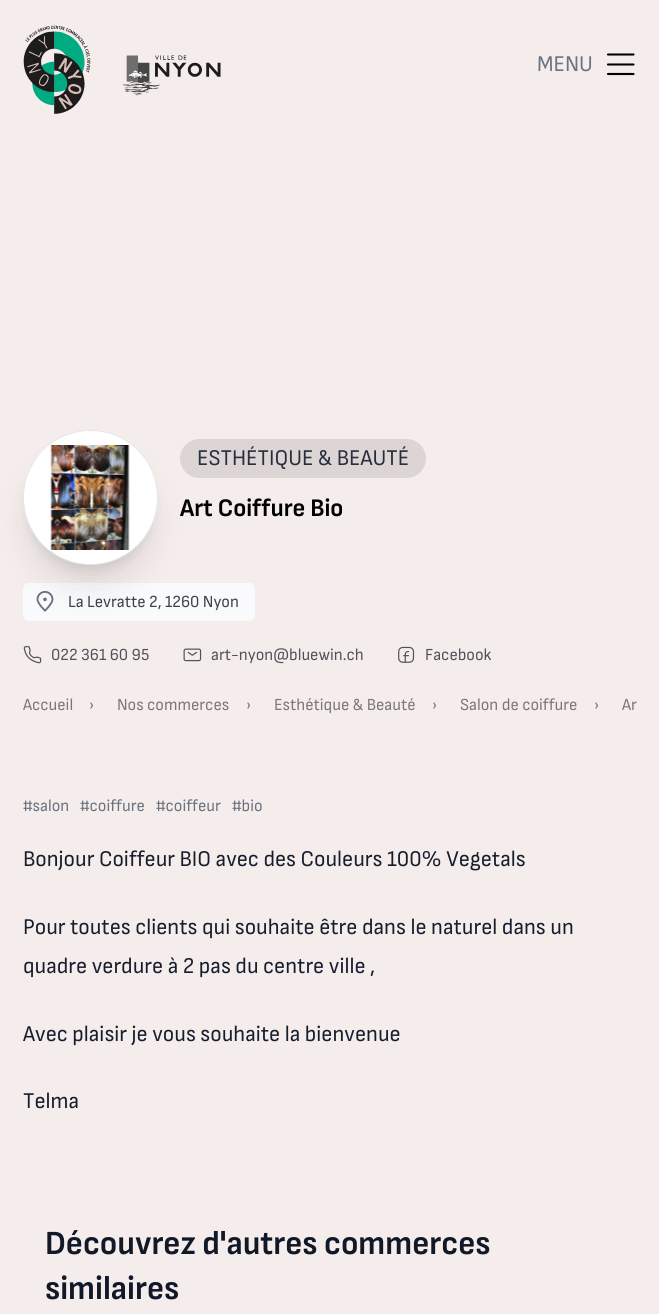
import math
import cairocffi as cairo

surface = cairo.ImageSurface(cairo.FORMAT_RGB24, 659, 1314)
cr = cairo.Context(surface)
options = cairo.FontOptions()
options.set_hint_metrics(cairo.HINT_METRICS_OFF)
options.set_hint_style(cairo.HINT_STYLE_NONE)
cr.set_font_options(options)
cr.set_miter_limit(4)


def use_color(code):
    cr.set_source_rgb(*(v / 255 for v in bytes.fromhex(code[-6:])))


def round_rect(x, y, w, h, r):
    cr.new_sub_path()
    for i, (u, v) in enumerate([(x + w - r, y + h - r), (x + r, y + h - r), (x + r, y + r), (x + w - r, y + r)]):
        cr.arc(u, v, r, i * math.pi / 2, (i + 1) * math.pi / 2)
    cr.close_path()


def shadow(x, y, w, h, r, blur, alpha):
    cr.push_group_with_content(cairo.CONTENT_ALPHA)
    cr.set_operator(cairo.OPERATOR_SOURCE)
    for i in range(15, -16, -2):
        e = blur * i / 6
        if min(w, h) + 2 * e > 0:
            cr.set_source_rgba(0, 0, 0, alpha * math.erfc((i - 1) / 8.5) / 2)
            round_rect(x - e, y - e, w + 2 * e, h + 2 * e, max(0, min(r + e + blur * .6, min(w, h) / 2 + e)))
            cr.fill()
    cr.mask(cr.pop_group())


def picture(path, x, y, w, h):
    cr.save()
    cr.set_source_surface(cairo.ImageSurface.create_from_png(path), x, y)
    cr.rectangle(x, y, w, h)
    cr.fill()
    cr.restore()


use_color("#f5edeb")
cr.paint()
picture("img1.png", 23, 25, 198, 89)
cr.select_font_face("Sofia Sans Semi Condensed")
cr.set_font_size(22.5)
use_color("#6b7280")
cr.move_to(537, 71)
cr.show_text("MENU")
cr.new_path()
cr.move_to(608, 54.5)
cr.line_to(633.5, 54.5)
cr.move_to(608, 64.5)
cr.line_to(633.5, 64.5)
cr.move_to(608, 74)
cr.line_to(633.5, 74)
use_color("#000000")
cr.set_line_width(2.1)
cr.set_line_cap(cairo.LINE_CAP_ROUND)
cr.set_line_join(cairo.LINE_JOIN_ROUND)
cr.stroke()
use_color("#f9fafb")
round_rect(23, 583, 232, 38, 6)
cr.fill()
use_color("#000000")
shadow(30, 448, 120, 120, 60, 6, 0.1)
use_color("#ddd5d4")
round_rect(180, 439, 246, 39, 19.5)
cr.fill()
picture("img3.png", 36, 591, 18, 21)
use_color("#000000")
shadow(29, 461, 122, 123, 61, 15.5, 0.1)
use_color("#ffffff")
cr.arc(90.5, 497.5, 67, 0, 2 * math.pi)
cr.fill_preserve()
use_color("#e5e7eb")
cr.set_line_width(1)
cr.set_line_cap(cairo.LINE_CAP_BUTT)
cr.set_line_join(cairo.LINE_JOIN_MITER)
cr.stroke()
cr.save()
round_rect(24, 431, 132, 133, 66)
cr.clip()
use_color("#ffffff")
cr.rectangle(38, 445, 105, 105)
cr.fill()
cr.restore()
picture("img2.png", 50, 445, 80, 105)
use_color("#252f3f")
cr.move_to(197, 465)
cr.show_text("ESTHÉTIQUE & BEAUTÉ")
cr.select_font_face("Sofia Sans Semi Condensed", cairo.FONT_SLANT_NORMAL, cairo.FONT_WEIGHT_BOLD)
cr.set_font_size(25.25)
use_color("#000000")
cr.move_to(180, 516)
cr.show_text("Art Coiffure Bio")
cr.select_font_face("Sofia Sans Semi Condensed")
cr.set_font_size(16.9)
use_color("#3f3f46")
cr.move_to(68, 607)
cr.show_text("La Levratte 2, 1260 Nyon")
picture("img4.png", 23, 646, 19, 18)
use_color("#52525b")
cr.move_to(51, 660)
cr.show_text("022 361 60 95")
picture("img5.png", 183, 648, 19, 14)
cr.move_to(211, 660)
cr.show_text("art-nyon@bluewin.ch")
picture("img6.png", 398, 646, 17, 17)
cr.move_to(425, 660)
cr.show_text("Facebook")
use_color("#7b7776")
cr.move_to(23, 710)
cr.show_text("Accueil")
cr.move_to(89, 710)
cr.show_text("›")
cr.move_to(117, 710)
cr.show_text("Nos commerces")
cr.move_to(246, 710)
cr.show_text("›")
cr.move_to(274, 710)
cr.show_text("Esthétique & Beauté")
cr.move_to(432, 710)
cr.show_text("›")
cr.move_to(460, 710)
cr.show_text("Salon de coiffure")
cr.move_to(594, 710)
cr.show_text("›")
cr.move_to(622, 710)
cr.show_text("Ar")
use_color("#6b7280")
cr.move_to(23, 811)
cr.show_text("#salon")
cr.move_to(80, 811)
cr.show_text("#coiffure")
cr.move_to(156, 811)
cr.show_text("#coiffeur")
cr.move_to(232, 811)
cr.show_text("#bio")
cr.set_font_size(22.5)
use_color("#161e2e")
cr.move_to(23, 866)
cr.show_text("Bonjour Coiffeur BIO avec des Couleurs 100% Vegetals")
cr.move_to(23, 934)
cr.show_text("Pour toutes clients qui souhaite être dans le naturel dans un")
cr.move_to(23, 973)
cr.show_text("quadre verdure à 2 pas du centre ville ,")
cr.move_to(23, 1041)
cr.show_text("Avec plaisir je vous souhaite la bienvenue")
cr.move_to(23, 1108)
cr.show_text("Telma")
cr.select_font_face("Sofia Sans Semi Condensed", cairo.FONT_SLANT_NORMAL, cairo.FONT_WEIGHT_BOLD)
cr.set_font_size(33.75)
use_color("#111827")
cr.move_to(45, 1254)
cr.show_text("Découvrez d'autres commerces")
cr.move_to(45, 1299)
cr.show_text("similaires")
surface.write_to_png("result.png")
